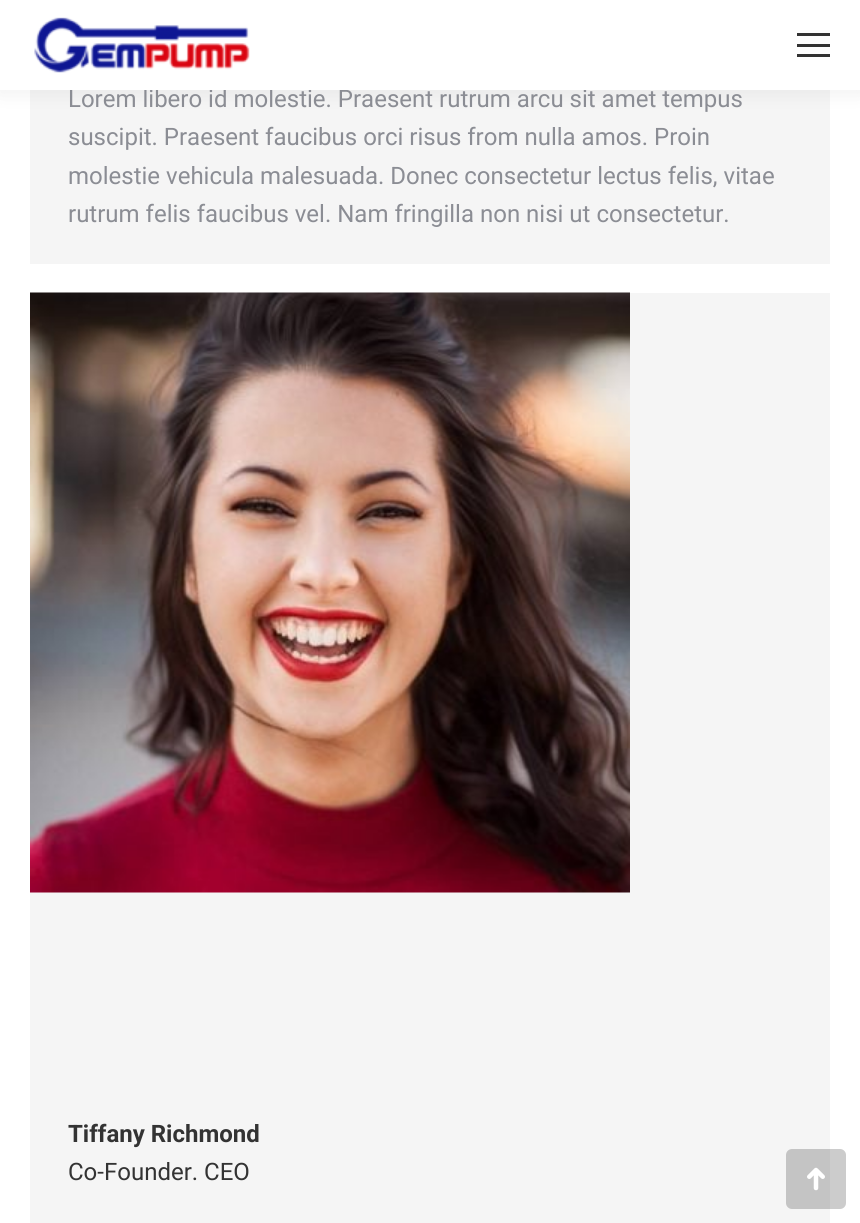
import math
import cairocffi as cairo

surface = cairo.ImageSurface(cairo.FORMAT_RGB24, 860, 1223)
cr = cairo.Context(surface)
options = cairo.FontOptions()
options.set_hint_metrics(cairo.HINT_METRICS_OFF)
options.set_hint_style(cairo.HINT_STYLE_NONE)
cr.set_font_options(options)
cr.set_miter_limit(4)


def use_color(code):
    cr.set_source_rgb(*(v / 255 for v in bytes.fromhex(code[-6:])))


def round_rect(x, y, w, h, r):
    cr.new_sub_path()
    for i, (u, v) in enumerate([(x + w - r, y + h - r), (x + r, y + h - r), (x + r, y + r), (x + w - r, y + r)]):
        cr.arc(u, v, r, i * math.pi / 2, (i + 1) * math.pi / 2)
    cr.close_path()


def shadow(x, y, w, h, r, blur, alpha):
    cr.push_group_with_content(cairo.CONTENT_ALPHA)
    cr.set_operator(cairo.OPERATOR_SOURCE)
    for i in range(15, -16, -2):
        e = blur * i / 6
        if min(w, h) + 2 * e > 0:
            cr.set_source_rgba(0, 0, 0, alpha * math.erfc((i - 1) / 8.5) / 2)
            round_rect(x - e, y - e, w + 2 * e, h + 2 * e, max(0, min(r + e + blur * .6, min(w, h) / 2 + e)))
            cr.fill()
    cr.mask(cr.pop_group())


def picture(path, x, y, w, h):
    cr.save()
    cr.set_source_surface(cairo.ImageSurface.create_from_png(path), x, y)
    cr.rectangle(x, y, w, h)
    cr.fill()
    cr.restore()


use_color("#ffffff")
cr.paint()
use_color("#f5f5f5")
cr.rectangle(30, 90, 800, 174)
cr.fill()
use_color("#000000")
shadow(-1, -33, 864, 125, 0, 11, 0.07)
cr.select_font_face("Roboto")
cr.set_font_size(24)
use_color("#8b8d94")
cr.move_to(68, 107)
cr.show_text("Lorem libero id molestie. Praesent rutrum arcu sit amet tempus")
use_color("#ffffff")
cr.rectangle(0, 0, 860, 90)
cr.fill()
picture("img1.png", 34, 17, 216, 56)
use_color("#333333")
cr.rectangle(797, 33, 33, 3)
cr.fill()
cr.rectangle(797, 44, 33, 3)
cr.fill()
cr.rectangle(797, 54, 33, 3)
cr.fill()
use_color("#8b8d94")
cr.move_to(68, 145)
cr.show_text("suscipit. Praesent faucibus orci risus from nulla amos. Proin")
cr.move_to(68, 184)
cr.show_text("molestie vehicula malesuada. Donec consectetur lectus felis, vitae")
cr.move_to(68, 222)
cr.show_text("rutrum felis faucibus vel. Nam fringilla non nisi ut consectetur.")
use_color("#f5f5f5")
cr.rectangle(30, 293, 800, 930)
cr.fill()
picture("img2.png", 30, 292, 600, 601)
cr.select_font_face("Roboto", cairo.FONT_SLANT_NORMAL, cairo.FONT_WEIGHT_BOLD)
use_color("#333333")
cr.move_to(68, 1142)
cr.show_text("Tiffany Richmond")
cr.select_font_face("Roboto")
cr.move_to(68, 1180)
cr.show_text("Co-Founder. CEO")
cr.set_source_rgba(0, 0, 0, 0.2)
round_rect(786, 1149, 60, 60, 6)
cr.fill()
picture("img3.png", 807, 1167, 18, 24)
surface.write_to_png("result.png")
